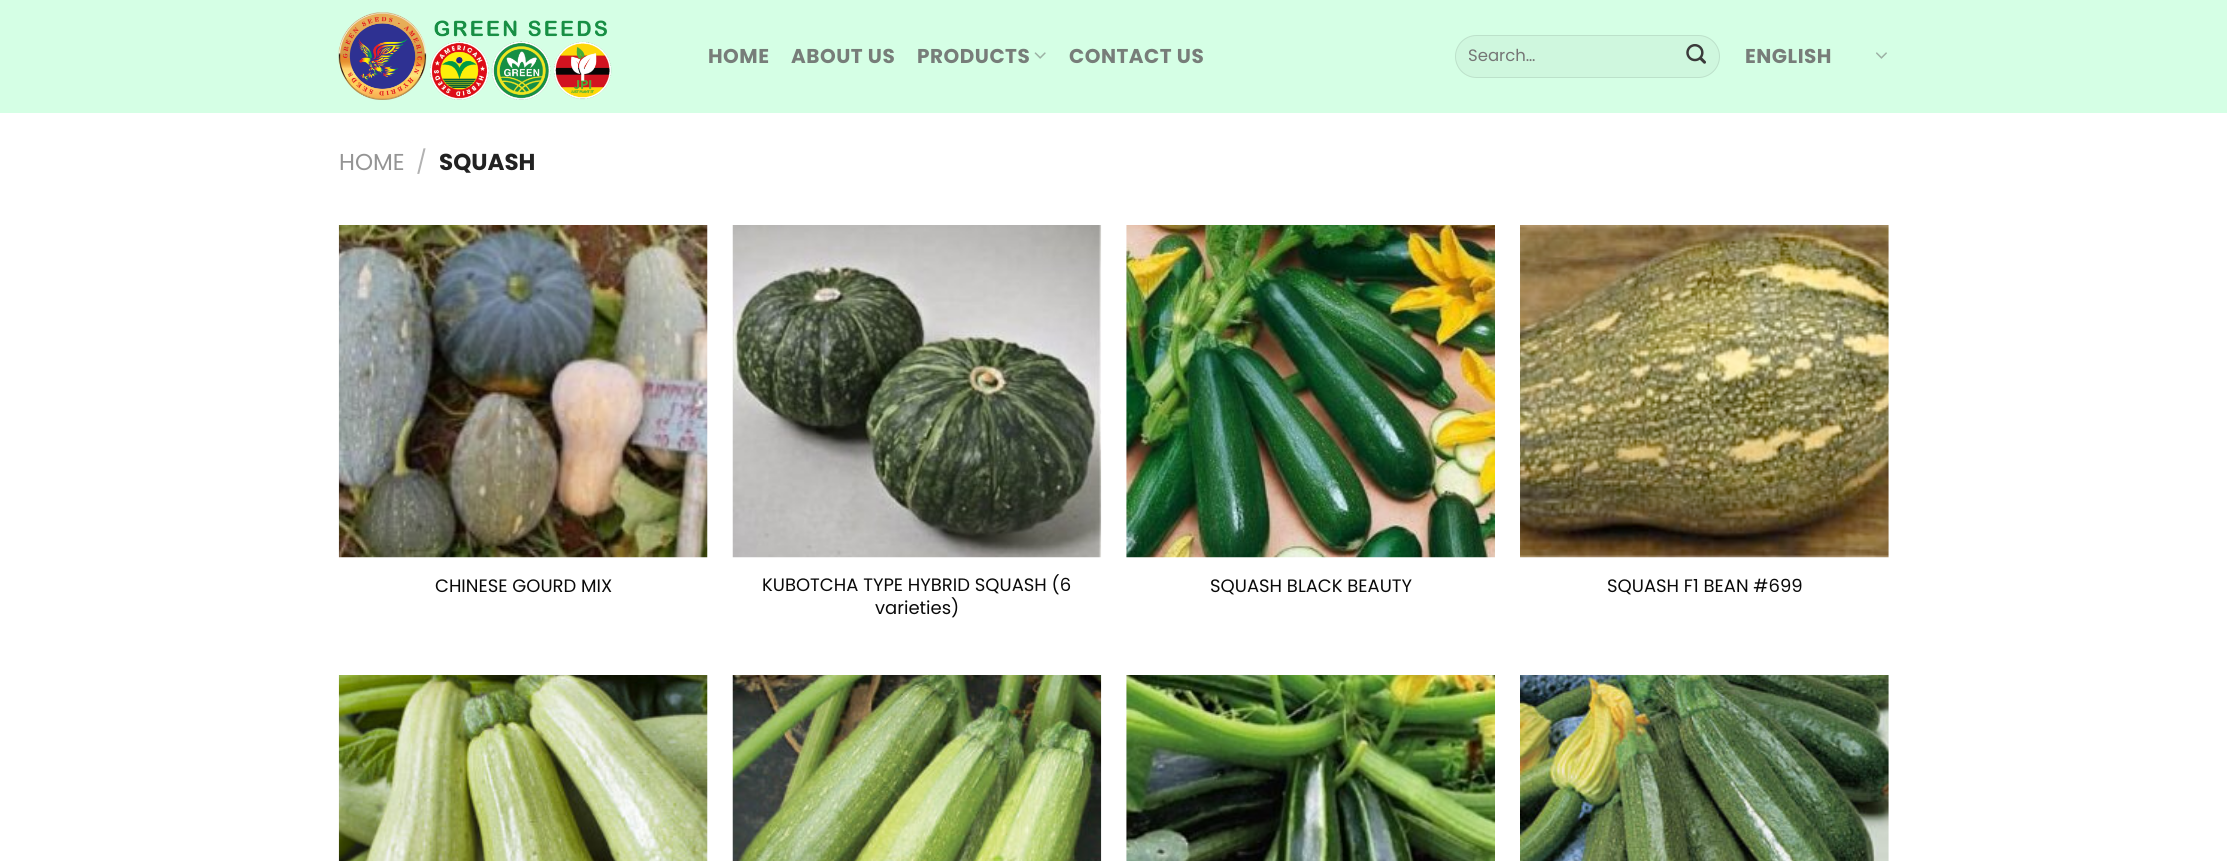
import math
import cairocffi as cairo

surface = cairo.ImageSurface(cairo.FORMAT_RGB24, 2227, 861)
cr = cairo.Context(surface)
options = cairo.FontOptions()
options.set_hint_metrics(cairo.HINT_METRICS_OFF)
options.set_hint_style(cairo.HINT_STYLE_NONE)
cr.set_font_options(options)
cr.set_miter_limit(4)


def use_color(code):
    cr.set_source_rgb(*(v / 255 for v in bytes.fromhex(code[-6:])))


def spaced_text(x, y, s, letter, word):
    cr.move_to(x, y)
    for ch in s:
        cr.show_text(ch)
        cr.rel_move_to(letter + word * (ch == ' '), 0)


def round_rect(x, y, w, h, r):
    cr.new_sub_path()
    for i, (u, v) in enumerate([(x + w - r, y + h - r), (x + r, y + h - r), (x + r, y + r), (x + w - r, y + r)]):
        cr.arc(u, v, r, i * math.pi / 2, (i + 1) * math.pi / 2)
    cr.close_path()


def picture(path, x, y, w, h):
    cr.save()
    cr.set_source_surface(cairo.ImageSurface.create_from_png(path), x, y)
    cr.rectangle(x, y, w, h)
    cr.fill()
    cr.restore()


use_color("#ffffff")
cr.paint()
use_color("#d5ffe5")
cr.rectangle(0, 0, 2227, 113)
cr.fill()
picture("img1.png", 338, 12, 274, 88)
cr.select_font_face("Poppins", cairo.FONT_SLANT_NORMAL, cairo.FONT_WEIGHT_BOLD)
cr.set_font_size(20)
use_color("#777d79")
spaced_text(708, 63, "HOME", 0.5, 0)
spaced_text(791, 63, "ABOUT US", 0.5, 0)
spaced_text(917, 63, "PRODUCTS", 0.5, 0)
picture("img2.png", 1034, 52, 12, 7)
spaced_text(1069, 63, "CONTACT US", 0.5, 0)
use_color("#cff7de")
round_rect(1455, 35, 265, 43, 21.5)
cr.fill()
round_rect(1455.5, 35.5, 264, 42, 21)
cr.set_source_rgba(0, 0, 0, 0.09)
cr.set_line_width(1)
cr.stroke()
cr.select_font_face("Poppins")
cr.set_font_size(16.5)
use_color("#757575")
cr.move_to(1468, 61)
cr.show_text("Search…")
picture("img3.png", 1686, 44, 20, 20)
cr.select_font_face("Poppins", cairo.FONT_SLANT_NORMAL, cairo.FONT_WEIGHT_BOLD)
cr.set_font_size(20)
use_color("#777d79")
spaced_text(1745, 63, "ENGLISH", 0.5, 0)
picture("img4.png", 1876, 52, 11, 7)
cr.select_font_face("Poppins")
cr.set_font_size(23)
use_color("#949494")
cr.move_to(339, 170)
cr.show_text("HOME")
use_color("#b2b2b2")
cr.move_to(416, 170)
cr.show_text("/")
cr.select_font_face("Poppins", cairo.FONT_SLANT_NORMAL, cairo.FONT_WEIGHT_BOLD)
use_color("#222222")
cr.move_to(439, 170)
cr.show_text("SQUASH")
picture("img5.png", 338, 225, 370, 333)
cr.select_font_face("Poppins")
cr.set_font_size(18)
use_color("#0a0a0a")
cr.move_to(435, 592)
cr.show_text("CHINESE GOURD MIX")
picture("img6.png", 732, 225, 370, 333)
cr.move_to(762, 591)
cr.show_text("KUBOTCHA TYPE HYBRID SQUASH (6")
cr.move_to(875, 614)
cr.show_text("varieties)")
picture("img7.png", 1126, 225, 369, 333)
cr.move_to(1210, 592)
cr.show_text("SQUASH BLACK BEAUTY")
picture("img8.png", 1520, 225, 369, 333)
cr.move_to(1607, 592)
cr.show_text("SQUASH F1 BEAN #699")
picture("img9.png", 338, 675, 370, 186)
picture("img10.png", 732, 675, 370, 186)
picture("img11.png", 1126, 675, 369, 186)
picture("img12.png", 1520, 675, 369, 186)
surface.write_to_png("result.png")
